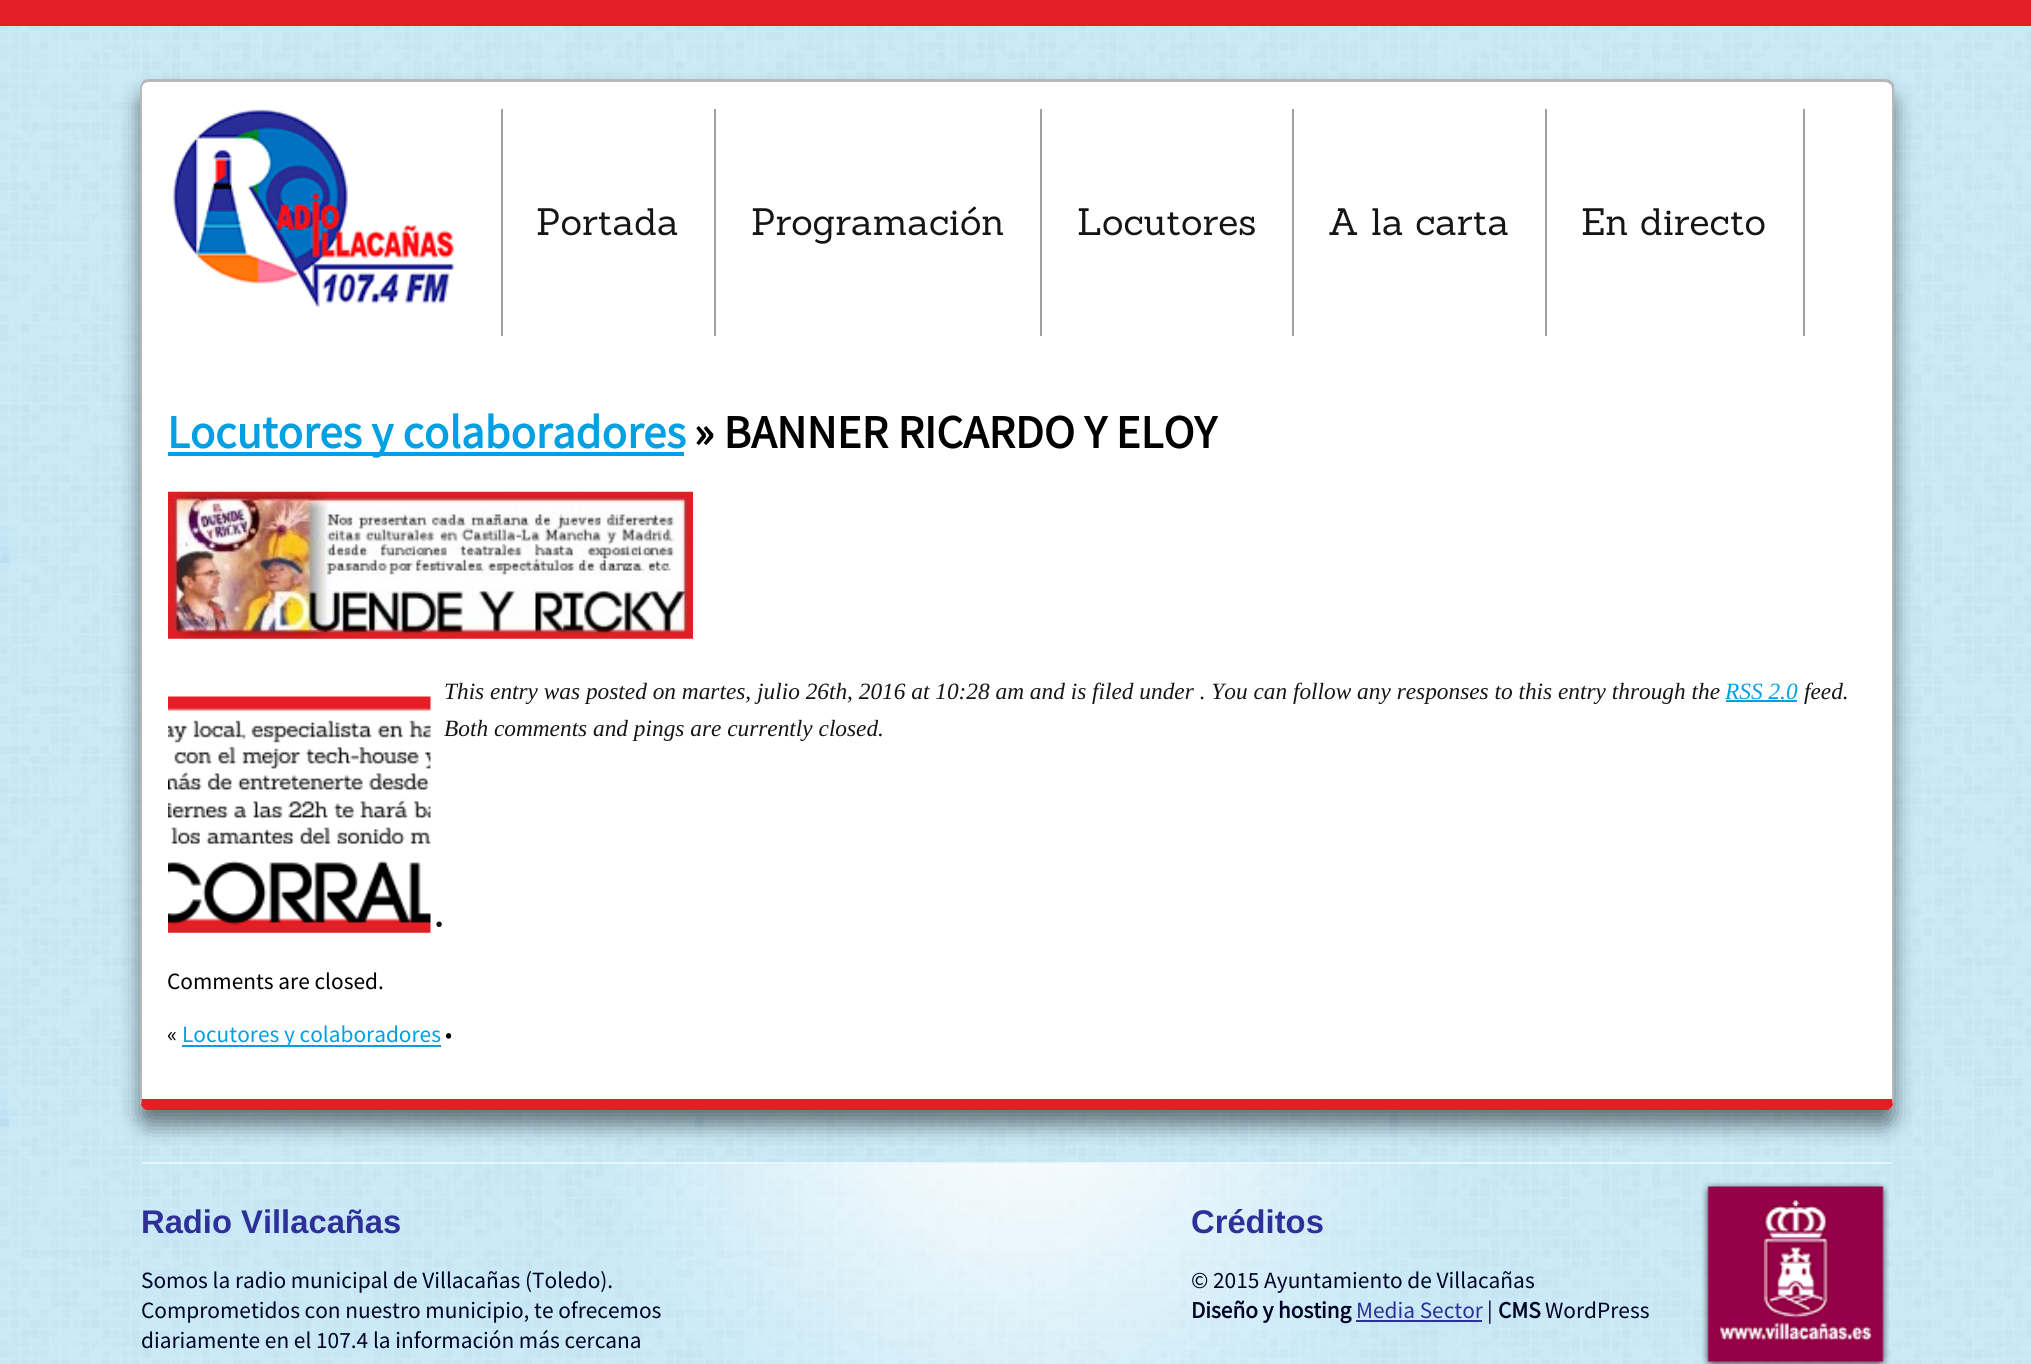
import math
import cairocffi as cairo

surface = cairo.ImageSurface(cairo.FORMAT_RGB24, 2031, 1364)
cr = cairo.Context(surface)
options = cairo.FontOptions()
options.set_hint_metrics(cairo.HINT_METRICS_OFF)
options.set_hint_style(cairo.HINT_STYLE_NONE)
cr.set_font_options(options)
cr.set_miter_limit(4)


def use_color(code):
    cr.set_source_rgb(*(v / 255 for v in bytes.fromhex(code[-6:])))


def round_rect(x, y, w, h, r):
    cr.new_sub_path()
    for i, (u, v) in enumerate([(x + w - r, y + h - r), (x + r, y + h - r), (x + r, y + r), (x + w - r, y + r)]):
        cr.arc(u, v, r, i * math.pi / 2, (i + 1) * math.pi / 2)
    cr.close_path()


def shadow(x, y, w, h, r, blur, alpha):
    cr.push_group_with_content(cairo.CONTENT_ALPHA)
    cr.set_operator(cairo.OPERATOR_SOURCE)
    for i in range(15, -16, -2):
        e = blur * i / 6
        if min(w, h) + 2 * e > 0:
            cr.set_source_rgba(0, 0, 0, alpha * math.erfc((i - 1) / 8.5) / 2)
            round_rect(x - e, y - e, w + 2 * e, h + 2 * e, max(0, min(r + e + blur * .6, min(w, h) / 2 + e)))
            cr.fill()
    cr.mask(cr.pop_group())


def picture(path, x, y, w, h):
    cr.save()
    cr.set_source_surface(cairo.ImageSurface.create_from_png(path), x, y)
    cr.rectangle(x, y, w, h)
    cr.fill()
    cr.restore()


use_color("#ffffff")
cr.paint()
picture("img1.png", 0, 26, 2031, 1338)
use_color("#e31e24")
cr.rectangle(0, 0, 2031, 26)
cr.fill()
use_color("#000000")
shadow(140, 95, 1754, 1030, 9, 10.5, 0.5)
use_color("#ffffff")
round_rect(140, 79, 1754, 1031, 9)
cr.fill()
cr.set_source_rgba(0, 0, 0, 0.28)
cr.new_path()
cr.move_to(149, 79)
cr.curve_to(146, 79, 144, 80, 142, 82)
cr.line_to(143, 85)
cr.curve_to(144, 83, 146, 82, 149, 82)
cr.line_to(1885, 82)
cr.curve_to(1887, 82, 1889, 83, 1891, 85)
cr.line_to(1892, 82)
cr.curve_to(1890, 80, 1888, 79, 1885, 79)
cr.close_path()
cr.fill()
cr.new_path()
cr.move_to(1894, 1104)
cr.line_to(1893, 1105)
cr.line_to(1892, 1099)
cr.line_to(1892, 88)
cr.line_to(1891, 85)
cr.line_to(1892, 82)
cr.line_to(1894, 85)
cr.close_path()
cr.fill()
use_color("#e31e24")
cr.new_path()
cr.move_to(146, 1110)
cr.curve_to(144, 1109, 142, 1107, 141, 1105)
cr.line_to(142, 1098)
cr.line_to(142, 1099)
cr.line_to(1892, 1099)
cr.line_to(1893, 1105)
cr.curve_to(1892, 1107, 1890, 1109, 1888, 1110)
cr.close_path()
cr.fill()
cr.set_source_rgba(0, 0, 0, 0.28)
cr.new_path()
cr.move_to(140, 88)
cr.line_to(140, 1101)
cr.line_to(141, 1105)
cr.line_to(142, 1098)
cr.line_to(142, 88)
cr.curve_to(142, 87, 142, 86, 143, 85)
cr.line_to(142, 82)
cr.curve_to(141, 84, 140, 86, 140, 88)
cr.close_path()
cr.fill()
picture("img2.png", 173, 109, 281, 199)
use_color("#a0a0a0")
cr.rectangle(1803, 109, 2, 227)
cr.fill()
cr.rectangle(501, 109, 2, 227)
cr.fill()
cr.select_font_face("Sanchez")
cr.set_font_size(37.25)
use_color("#151515")
cr.move_to(536, 235)
cr.show_text("Portada")
use_color("#a0a0a0")
cr.rectangle(714, 109, 2, 227)
cr.fill()
use_color("#151515")
cr.move_to(751, 235)
cr.show_text("Programación")
use_color("#a0a0a0")
cr.rectangle(1040, 109, 2, 227)
cr.fill()
use_color("#151515")
cr.move_to(1077, 235)
cr.show_text("Locutores")
use_color("#a0a0a0")
cr.rectangle(1292, 109, 2, 227)
cr.fill()
use_color("#151515")
cr.move_to(1328, 235)
cr.show_text("A la carta")
use_color("#a0a0a0")
cr.rectangle(1545, 109, 2, 227)
cr.fill()
use_color("#151515")
cr.move_to(1581, 235)
cr.show_text("En directo")
use_color("#00a0e3")
cr.rectangle(168, 452, 516, 4)
cr.fill()
cr.select_font_face("Source Sans Pro", cairo.FONT_SLANT_NORMAL, cairo.FONT_WEIGHT_BOLD)
cr.set_font_size(46.75)
cr.move_to(167, 448)
cr.show_text("Locutores y colaboradores")
use_color("#000000")
cr.move_to(694, 448)
cr.show_text("» BANNER RICARDO Y ELOY")
picture("img3.png", 168, 491, 525, 148)
cr.select_font_face("Liberation Serif", cairo.FONT_SLANT_ITALIC)
cr.set_font_size(23.33)
use_color("#151515")
cr.move_to(444, 699)
cr.show_text("This entry was posted on martes, julio 26th, 2016 at 10:28 am and is filed under . You can follow any responses to this entry through the")
use_color("#00a0e3")
cr.move_to(1725, 699)
cr.show_text("RSS 2.0")
cr.rectangle(1726, 700, 71, 2)
cr.fill()
use_color("#151515")
cr.move_to(1804, 699)
cr.show_text("feed.")
cr.move_to(444, 736)
cr.show_text("Both comments and pings are currently closed.")
picture("img4.png", 168, 696, 263, 237)
cr.select_font_face("Liberation Serif")
cr.move_to(435, 932)
cr.show_text("•")
cr.select_font_face("Source Sans Pro")
use_color("#000000")
cr.move_to(167, 989)
cr.show_text("Comments are closed.")
cr.move_to(167, 1042)
cr.show_text("«")
use_color("#00a0e3")
cr.rectangle(182, 1045, 259, 2)
cr.fill()
cr.move_to(182, 1042)
cr.show_text("Locutores y colaboradores")
use_color("#000000")
cr.move_to(445, 1042)
cr.show_text("•")
picture("img5.png", 616, 1163, 803, 201)
cr.set_source_rgba(1, 1, 1, 0.6)
cr.rectangle(142, 1162, 1750, 2)
cr.fill()
cr.select_font_face("Liberation Sans", cairo.FONT_SLANT_NORMAL, cairo.FONT_WEIGHT_BOLD)
cr.set_font_size(32.75)
use_color("#2e3099")
cr.move_to(141, 1233)
cr.show_text("Radio Villacañas")
cr.select_font_face("Source Sans Pro")
cr.set_font_size(23.33)
use_color("#000326")
cr.move_to(141, 1288)
cr.show_text("Somos la radio municipal de Villacañas (Toledo).")
cr.move_to(141, 1318)
cr.show_text("Comprometidos con nuestro municipio, te ofrecemos")
cr.move_to(141, 1348)
cr.show_text("diariamente en el 107.4 la información más cercana")
cr.select_font_face("Liberation Sans", cairo.FONT_SLANT_NORMAL, cairo.FONT_WEIGHT_BOLD)
cr.set_font_size(32.75)
use_color("#2e3099")
cr.move_to(1191, 1233)
cr.show_text("Créditos")
picture("img6.png", 1701, 1182, 188, 182)
cr.select_font_face("Source Sans Pro")
cr.set_font_size(23.33)
use_color("#000326")
cr.move_to(1191, 1288)
cr.show_text("© 2015 Ayuntamiento de Villacañas")
cr.select_font_face("Source Sans Pro", cairo.FONT_SLANT_NORMAL, cairo.FONT_WEIGHT_BOLD)
cr.move_to(1191, 1318)
cr.show_text("Diseño y hosting")
cr.select_font_face("Source Sans Pro")
use_color("#2e3099")
cr.move_to(1356, 1318)
cr.show_text("Media Sector")
cr.rectangle(1356, 1320, 126, 2)
cr.fill()
use_color("#000326")
cr.move_to(1487, 1318)
cr.show_text("|")
cr.select_font_face("Source Sans Pro", cairo.FONT_SLANT_NORMAL, cairo.FONT_WEIGHT_BOLD)
cr.move_to(1498, 1318)
cr.show_text("CMS")
cr.select_font_face("Source Sans Pro")
cr.move_to(1545, 1318)
cr.show_text("WordPress")
surface.write_to_png("result.png")
